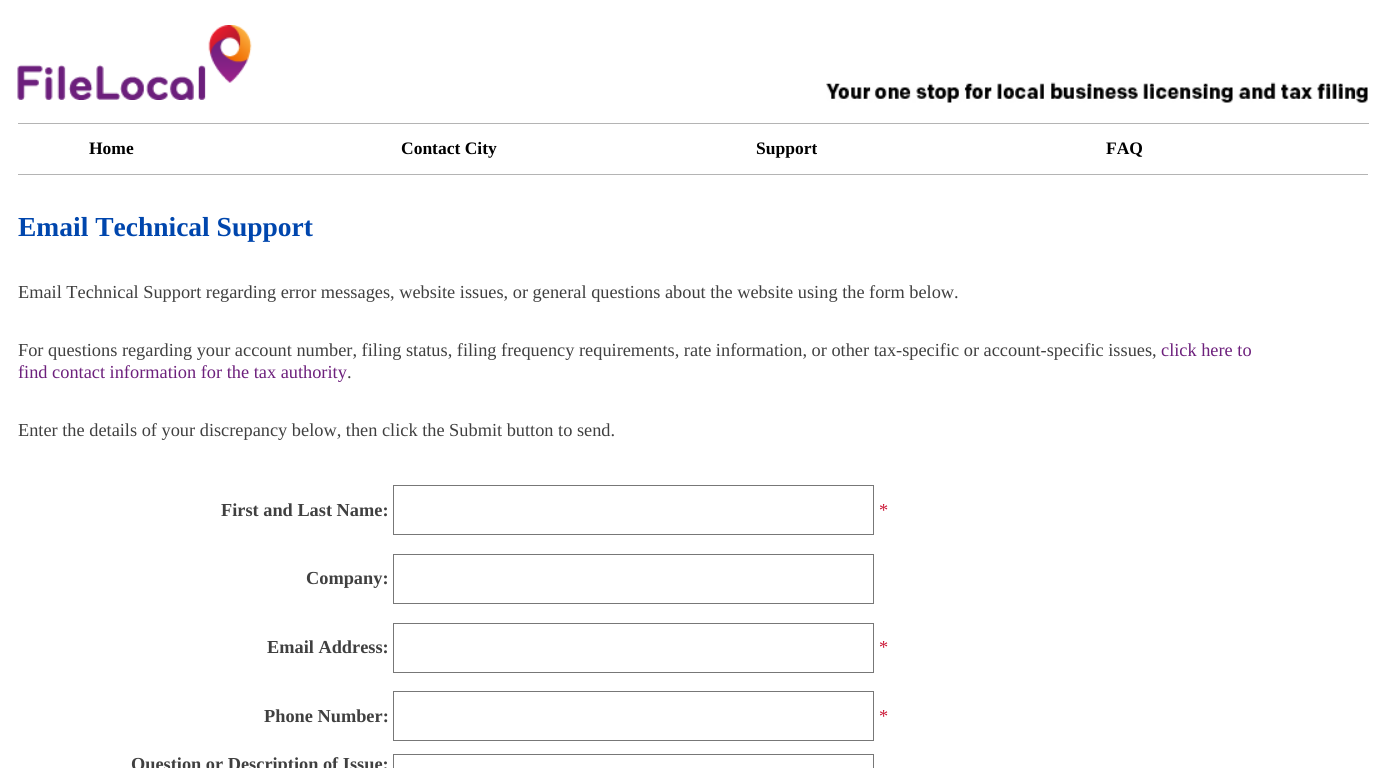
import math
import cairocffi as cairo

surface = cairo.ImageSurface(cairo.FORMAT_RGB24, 1389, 768)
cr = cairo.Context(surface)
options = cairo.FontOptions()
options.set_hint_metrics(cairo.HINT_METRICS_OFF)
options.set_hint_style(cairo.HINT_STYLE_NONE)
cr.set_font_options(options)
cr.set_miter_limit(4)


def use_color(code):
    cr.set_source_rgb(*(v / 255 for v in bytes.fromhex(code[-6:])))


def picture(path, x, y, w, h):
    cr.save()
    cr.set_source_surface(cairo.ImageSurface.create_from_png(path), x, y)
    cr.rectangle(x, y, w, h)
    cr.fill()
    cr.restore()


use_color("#ffffff")
cr.paint()
use_color("#b4b4b4")
cr.rectangle(18, 123, 1351, 1)
cr.fill()
picture("img1.png", 17, 25, 235, 75)
picture("img2.png", 826, 82, 542, 21)
cr.rectangle(18, 174, 1350, 1)
cr.fill()
cr.select_font_face("Liberation Serif", cairo.FONT_SLANT_NORMAL, cairo.FONT_WEIGHT_BOLD)
cr.set_font_size(17.5)
use_color("#000000")
cr.move_to(89, 154)
cr.show_text("Home")
cr.move_to(401, 154)
cr.show_text("Contact City")
cr.move_to(756, 154)
cr.show_text("Support")
cr.move_to(1106, 154)
cr.show_text("FAQ")
cr.set_font_size(27.5)
use_color("#0046ad")
cr.move_to(18, 236)
cr.show_text("Email Technical Support")
cr.select_font_face("Liberation Serif")
cr.set_font_size(18.33)
use_color("#404040")
cr.move_to(18, 298)
cr.show_text("Email Technical Support regarding error messages, website issues, or general questions about the website using the form below.")
cr.move_to(18, 356)
cr.show_text("For questions regarding your account number, filing status, filing frequency requirements, rate information, or other tax-specific or account-specific issues,")
use_color("#6d207c")
cr.move_to(1161, 356)
cr.show_text("click here to")
cr.move_to(18, 378)
cr.show_text("find contact information for the tax authority")
use_color("#404040")
cr.move_to(347, 378)
cr.show_text(".")
cr.move_to(18, 436)
cr.show_text("Enter the details of your discrepancy below, then click the Submit button to send.")
cr.select_font_face("Liberation Serif", cairo.FONT_SLANT_NORMAL, cairo.FONT_WEIGHT_BOLD)
cr.move_to(221, 516)
cr.show_text("First and Last Name:")
cr.rectangle(393.5, 485.5, 480, 49)
use_color("#777777")
cr.set_line_width(1)
cr.stroke()
cr.select_font_face("Liberation Serif")
use_color("#cc1837")
cr.move_to(879, 516)
cr.show_text("*")
cr.select_font_face("Liberation Serif", cairo.FONT_SLANT_NORMAL, cairo.FONT_WEIGHT_BOLD)
use_color("#404040")
cr.move_to(306, 584)
cr.show_text("Company:")
cr.rectangle(393.5, 554.5, 480, 49)
use_color("#777777")
cr.stroke()
use_color("#404040")
cr.move_to(267, 653)
cr.show_text("Email Address:")
cr.rectangle(393.5, 623.5, 480, 49)
use_color("#777777")
cr.stroke()
cr.select_font_face("Liberation Serif")
use_color("#cc1837")
cr.move_to(879, 653)
cr.show_text("*")
cr.select_font_face("Liberation Serif", cairo.FONT_SLANT_NORMAL, cairo.FONT_WEIGHT_BOLD)
use_color("#404040")
cr.move_to(264, 722)
cr.show_text("Phone Number:")
cr.rectangle(393.5, 691.5, 480, 49)
use_color("#777777")
cr.stroke()
cr.select_font_face("Liberation Serif")
use_color("#cc1837")
cr.move_to(879, 722)
cr.show_text("*")
cr.select_font_face("Liberation Serif", cairo.FONT_SLANT_NORMAL, cairo.FONT_WEIGHT_BOLD)
use_color("#404040")
cr.move_to(131, 770)
cr.show_text("Question or Description of Issue:")
cr.rectangle(393.5, 754.5, 480, 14)
use_color("#777777")
cr.stroke()
surface.write_to_png("result.png")
